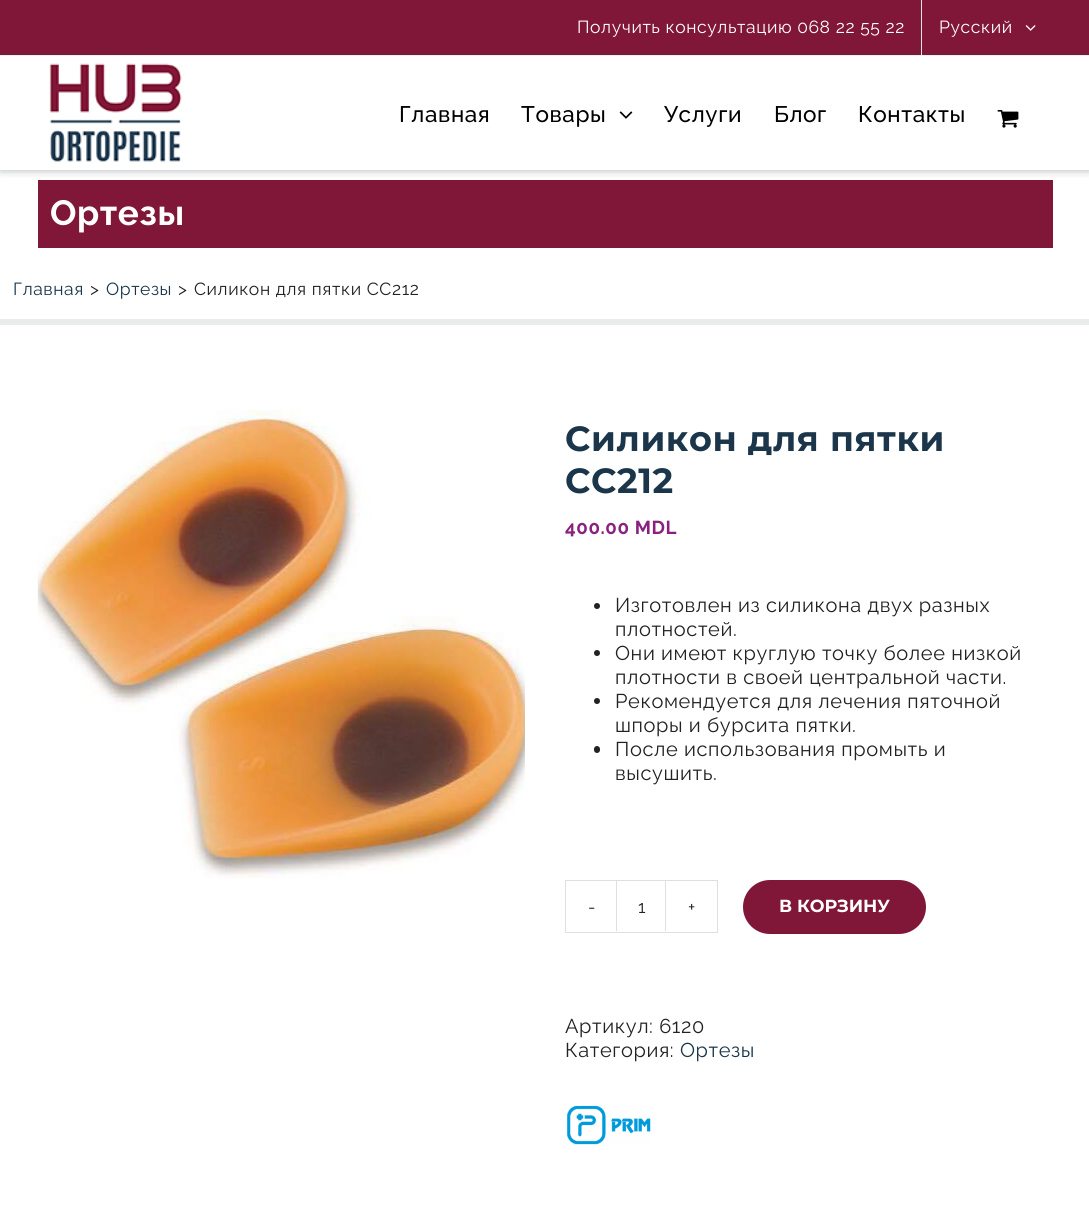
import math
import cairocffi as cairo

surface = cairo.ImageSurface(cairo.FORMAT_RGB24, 1089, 1231)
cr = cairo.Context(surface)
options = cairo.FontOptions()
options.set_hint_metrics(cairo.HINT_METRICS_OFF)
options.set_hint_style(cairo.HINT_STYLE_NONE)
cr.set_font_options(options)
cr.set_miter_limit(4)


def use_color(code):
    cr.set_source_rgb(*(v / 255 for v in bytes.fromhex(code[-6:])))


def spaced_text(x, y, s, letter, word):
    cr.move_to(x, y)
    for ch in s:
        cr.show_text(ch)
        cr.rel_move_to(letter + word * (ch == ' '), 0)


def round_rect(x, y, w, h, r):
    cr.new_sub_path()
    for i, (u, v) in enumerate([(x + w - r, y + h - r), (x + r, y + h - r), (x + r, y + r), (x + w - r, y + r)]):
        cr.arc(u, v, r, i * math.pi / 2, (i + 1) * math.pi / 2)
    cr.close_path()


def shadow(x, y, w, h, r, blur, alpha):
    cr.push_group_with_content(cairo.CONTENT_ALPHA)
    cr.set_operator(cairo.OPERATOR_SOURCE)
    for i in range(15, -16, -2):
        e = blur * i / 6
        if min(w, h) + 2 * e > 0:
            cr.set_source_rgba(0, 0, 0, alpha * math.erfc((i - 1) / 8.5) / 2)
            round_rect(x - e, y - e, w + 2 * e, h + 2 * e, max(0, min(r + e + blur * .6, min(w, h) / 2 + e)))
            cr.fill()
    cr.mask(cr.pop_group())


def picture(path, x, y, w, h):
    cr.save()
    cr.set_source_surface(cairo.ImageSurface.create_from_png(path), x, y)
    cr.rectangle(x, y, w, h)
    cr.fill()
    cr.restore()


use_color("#ffffff")
cr.paint()
use_color("#801738")
cr.rectangle(0, 0, 1089, 55)
cr.fill()
cr.select_font_face("Raleway")
cr.set_font_size(17.5)
use_color("#ffffff")
spaced_text(577, 33, "Получить консультацию 068 22 55 22", 0.6, 0)
use_color("#801738")
cr.rectangle(38, 180, 1015, 68)
cr.fill()
use_color("#39494c")
shadow(0, 58, 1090, 113, 0, 4, 0.35)
use_color("#e5e5e5")
cr.rectangle(921, 0, 1, 55)
cr.fill()
use_color("#ffffff")
spaced_text(939, 33, "Русский", 0.6, 0)
picture("img1.png", 1025, 25, 11, 6)
cr.rectangle(0, 56, 1089, 114)
cr.fill()
picture("img2.png", 49, 63, 133, 99)
cr.select_font_face("Raleway Medium")
cr.set_font_size(22.5)
use_color("#000000")
spaced_text(399, 122, "Главная", 0.6, 0)
spaced_text(521, 122, "Товары", 0.6, 0)
picture("img3.png", 619, 111, 14, 8)
spaced_text(664, 122, "Услуги", 0.6, 0)
spaced_text(774, 122, "Блог", 0.6, 0)
spaced_text(858, 122, "Контакты", 0.6, 0)
picture("img4.png", 997, 110, 22, 18)
cr.select_font_face("Raleway", cairo.FONT_SLANT_NORMAL, cairo.FONT_WEIGHT_BOLD)
cr.set_font_size(35)
use_color("#ffffff")
spaced_text(50, 225, "Ортезы", 0.6, 0)
use_color("#eaecec")
cr.rectangle(0, 319, 1089, 6)
cr.fill()
cr.select_font_face("Raleway")
cr.set_font_size(17.5)
use_color("#1b364b")
spaced_text(13, 295, "Главная", 0.6, 0)
use_color("#222222")
spaced_text(90, 295, ">", 0.6, 0)
use_color("#1b364b")
spaced_text(106, 295, "Ортезы", 0.6, 0)
use_color("#222222")
spaced_text(178, 295, ">", 0.6, 0)
spaced_text(194, 295, "Силикон для пятки CC212", 0.6, 0)
picture("img5.png", 37, 409, 488, 470)
cr.select_font_face("Montserrat", cairo.FONT_SLANT_NORMAL, cairo.FONT_WEIGHT_BOLD)
cr.set_font_size(35)
use_color("#1b364b")
spaced_text(565, 451, "Силикон для пятки", 0.6, 0)
spaced_text(565, 493, "CC212", 0.6, 0)
cr.select_font_face("Raleway", cairo.FONT_SLANT_NORMAL, cairo.FONT_WEIGHT_BOLD)
cr.set_font_size(18.75)
use_color("#89217f")
spaced_text(565, 534, "400.00 MDL", 0.6, 0)
use_color("#222222")
cr.new_path()
cr.arc(597, 606, 3, 0, 2 * math.pi)
cr.fill()
cr.select_font_face("Raleway")
cr.set_font_size(20)
spaced_text(615, 612, "Изготовлен из силикона двух разных", 0.6, 0)
spaced_text(615, 636, "плотностей.", 0.6, 0)
cr.new_path()
cr.arc(597, 653, 3, 0, 2 * math.pi)
cr.fill()
spaced_text(615, 660, "Они имеют круглую точку более низкой", 0.6, 0)
spaced_text(615, 684, "плотности в своей центральной части.", 0.6, 0)
cr.new_path()
cr.arc(597, 701, 3, 0, 2 * math.pi)
cr.fill()
spaced_text(615, 708, "Рекомендуется для лечения пяточной", 0.6, 0)
spaced_text(615, 732, "шпоры и бурсита пятки.", 0.6, 0)
round_rect(594, 746, 6, 7, 3)
cr.fill()
spaced_text(615, 756, "После использования промыть и", 0.6, 0)
spaced_text(615, 780, "высушить.", 0.6, 0)
cr.rectangle(565.5, 880.5, 152, 52)
use_color("#e0dede")
cr.set_line_width(1)
cr.stroke()
cr.set_font_size(17.5)
use_color("#222222")
cr.move_to(588, 913)
cr.show_text("-")
use_color("#e0dede")
cr.rectangle(665, 881, 1, 50)
cr.fill()
cr.rectangle(616, 881, 1, 50)
cr.fill()
use_color("#222222")
cr.move_to(638, 913)
cr.show_text("1")
cr.move_to(688, 913)
cr.show_text("+")
use_color("#801738")
round_rect(743, 880, 183, 54, 27)
cr.fill()
cr.select_font_face("Montserrat", cairo.FONT_SLANT_NORMAL, cairo.FONT_WEIGHT_BOLD)
use_color("#ffffff")
cr.move_to(779, 912)
cr.show_text("В КОРЗИНУ")
cr.select_font_face("Raleway")
cr.set_font_size(20)
use_color("#222222")
spaced_text(565, 1033, "Артикул: 6120", 0.6, 0)
spaced_text(565, 1057, "Категория:", 0.6, 0)
use_color("#1b364b")
spaced_text(680, 1057, "Ортезы", 0.6, 0)
picture("img6.png", 567, 1105, 84, 40)
surface.write_to_png("result.png")
